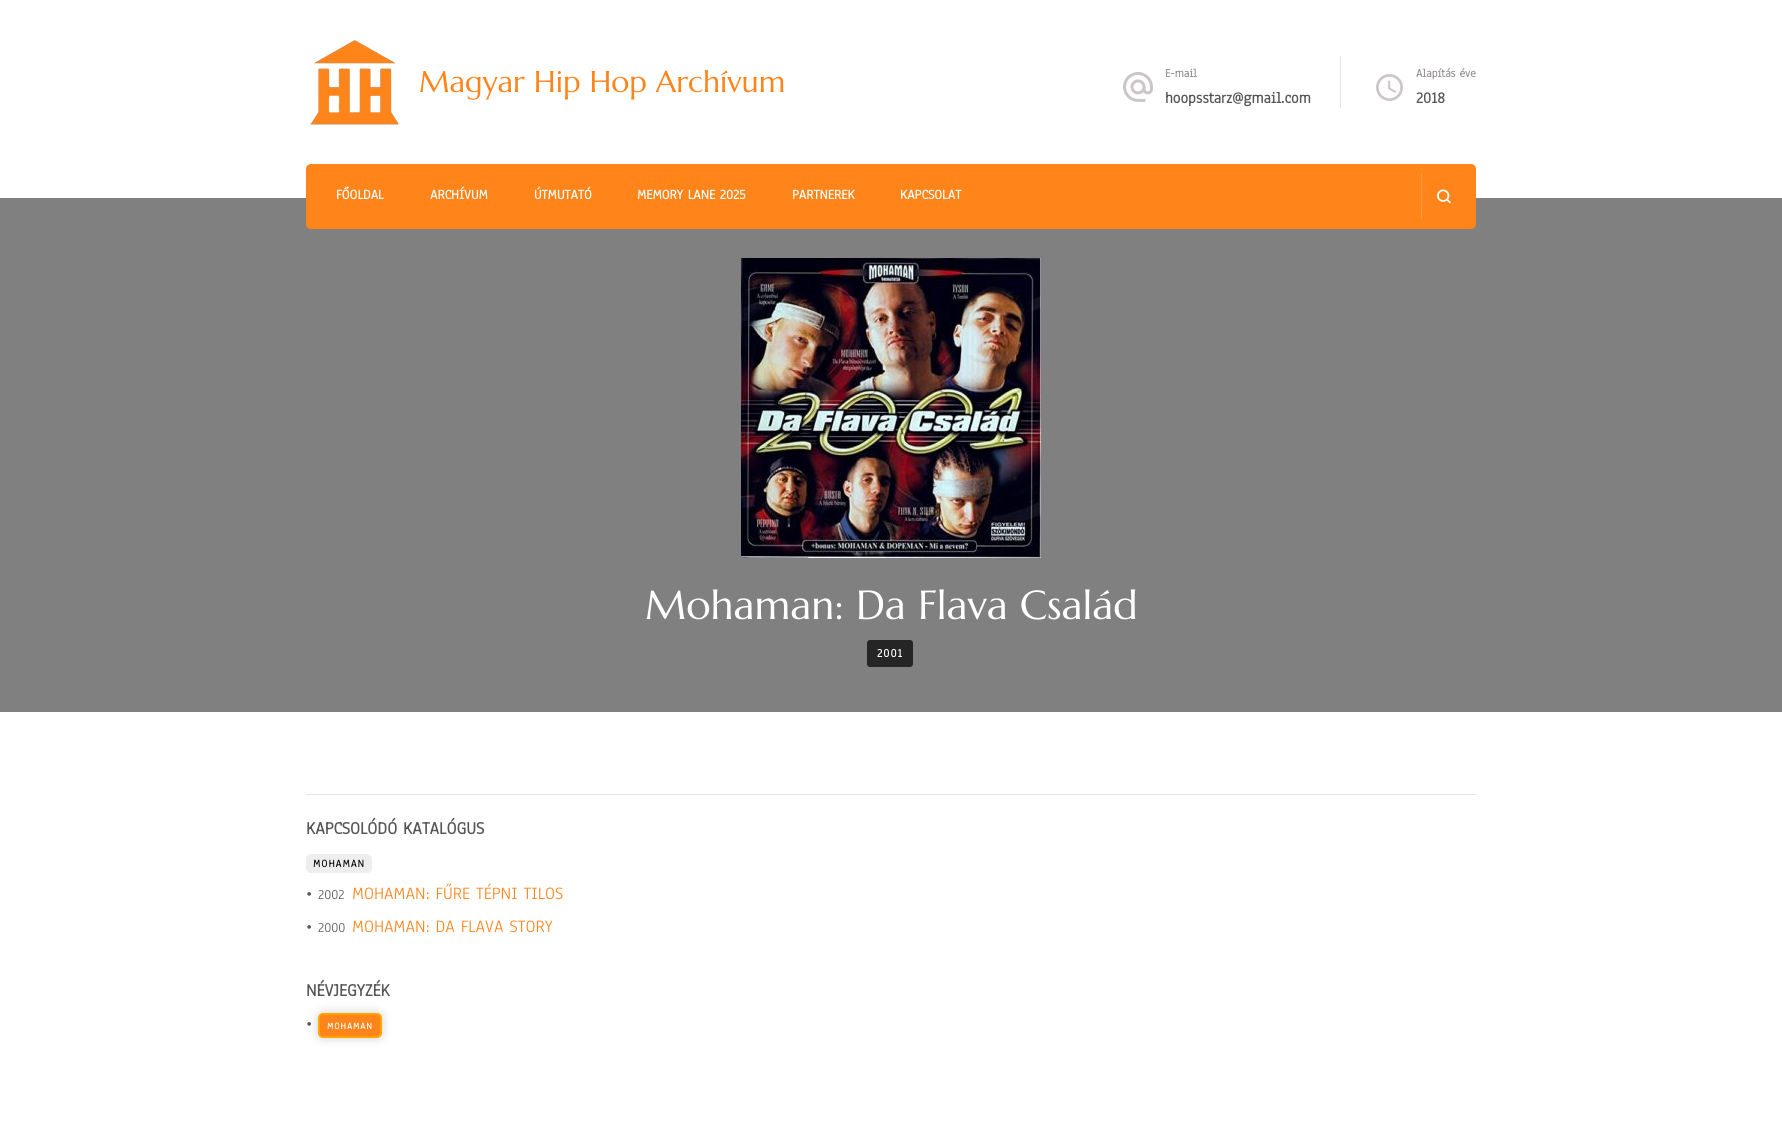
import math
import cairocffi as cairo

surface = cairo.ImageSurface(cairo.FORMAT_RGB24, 1782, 1142)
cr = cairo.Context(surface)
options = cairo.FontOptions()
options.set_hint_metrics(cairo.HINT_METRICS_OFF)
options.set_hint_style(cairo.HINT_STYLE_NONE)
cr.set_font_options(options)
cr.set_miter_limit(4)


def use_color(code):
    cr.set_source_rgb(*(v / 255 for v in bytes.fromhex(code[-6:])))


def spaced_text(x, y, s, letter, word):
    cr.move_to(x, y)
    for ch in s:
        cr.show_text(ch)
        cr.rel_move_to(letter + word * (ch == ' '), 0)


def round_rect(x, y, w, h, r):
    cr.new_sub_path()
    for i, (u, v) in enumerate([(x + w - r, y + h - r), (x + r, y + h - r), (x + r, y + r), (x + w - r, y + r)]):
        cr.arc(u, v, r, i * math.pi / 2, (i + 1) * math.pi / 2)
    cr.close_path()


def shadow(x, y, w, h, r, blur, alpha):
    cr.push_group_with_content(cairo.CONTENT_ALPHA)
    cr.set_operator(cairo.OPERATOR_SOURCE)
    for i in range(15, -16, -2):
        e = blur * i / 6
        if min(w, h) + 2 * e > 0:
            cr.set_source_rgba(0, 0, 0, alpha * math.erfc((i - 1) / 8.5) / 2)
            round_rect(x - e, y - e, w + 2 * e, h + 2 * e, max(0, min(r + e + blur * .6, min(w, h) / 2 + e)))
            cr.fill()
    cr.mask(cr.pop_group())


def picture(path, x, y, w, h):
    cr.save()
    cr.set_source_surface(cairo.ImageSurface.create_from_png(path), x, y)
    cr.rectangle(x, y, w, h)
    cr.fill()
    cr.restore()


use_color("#ffffff")
cr.paint()
picture("img1.png", 310, 40, 89, 85)
cr.select_font_face("Marcellus")
cr.set_font_size(30)
use_color("#ff841a")
cr.move_to(419, 92)
cr.show_text("Magyar Hip Hop Archívum")
picture("img2.png", 1123, 72, 30, 30)
cr.select_font_face("Anaheim", cairo.FONT_SLANT_NORMAL, cairo.FONT_WEIGHT_BOLD)
cr.set_font_size(12)
use_color("#999596")
cr.move_to(1165, 77)
cr.show_text("E-mail")
cr.set_font_size(16)
use_color("#585656")
cr.move_to(1165, 103)
cr.show_text("hoopsstarz@gmail.com")
use_color("#e6e6e6")
cr.rectangle(1340, 56, 1, 52)
cr.fill()
picture("img3.png", 1376, 74, 27, 27)
cr.set_font_size(12)
use_color("#999596")
cr.move_to(1416, 77)
cr.show_text("Alapítás éve")
cr.set_font_size(16)
use_color("#585656")
cr.move_to(1416, 103)
cr.show_text("2018")
use_color("#808080")
cr.rectangle(0, 198, 1782, 514)
cr.fill()
use_color("#ff841a")
round_rect(306, 164, 1170, 65, 5)
cr.fill()
cr.set_font_size(14)
use_color("#ffffff")
cr.move_to(336, 199)
cr.show_text("FŐOLDAL")
cr.move_to(430, 199)
cr.show_text("ARCHÍVUM")
cr.move_to(534, 199)
cr.show_text("ÚTMUTATÓ")
cr.move_to(637, 199)
cr.show_text("MEMORY LANE 2025")
cr.move_to(792, 199)
cr.show_text("PARTNEREK")
cr.move_to(900, 199)
cr.show_text("KAPCSOLAT")
use_color("#ff9d48")
cr.rectangle(1421, 174, 1, 45)
cr.fill()
picture("img4.png", 1437, 189, 14, 15)
picture("img5.png", 741, 258, 300, 300)
cr.select_font_face("Marcellus")
cr.set_font_size(40.5)
use_color("#ffffff")
cr.move_to(645, 619)
cr.show_text("Mohaman: Da Flava Család")
use_color("#262525")
round_rect(867, 640, 46, 27, 3)
cr.fill()
cr.select_font_face("Anaheim", cairo.FONT_SLANT_NORMAL, cairo.FONT_WEIGHT_BOLD)
cr.set_font_size(12)
use_color("#ffffff")
spaced_text(877, 657, "2001", 1, 0)
use_color("#e6e6e6")
cr.rectangle(306, 794, 1170, 1)
cr.fill()
cr.set_font_size(18)
use_color("#585656")
cr.move_to(306, 834)
cr.show_text("KAPCSOLÓDÓ KATALÓGUS")
use_color("#eeeeee")
round_rect(306, 854, 66, 19, 5)
cr.fill()
cr.set_font_size(11)
use_color("#111111")
spaced_text(313, 867, "MOHAMAN", 1, 0)
cr.select_font_face("Anaheim")
cr.set_font_size(18)
use_color("#585656")
cr.move_to(306, 899)
cr.show_text("•")
cr.set_font_size(14)
cr.move_to(318, 899)
cr.show_text("2002")
cr.set_font_size(18)
use_color("#ff841a")
cr.move_to(352, 899)
cr.show_text("MOHAMAN: FŰRE TÉPNI TILOS")
use_color("#585656")
cr.move_to(306, 932)
cr.show_text("•")
cr.set_font_size(14)
cr.move_to(318, 932)
cr.show_text("2000")
cr.set_font_size(18)
use_color("#ff841a")
cr.move_to(352, 932)
cr.show_text("MOHAMAN: DA FLAVA STORY")
cr.select_font_face("Anaheim", cairo.FONT_SLANT_NORMAL, cairo.FONT_WEIGHT_BOLD)
use_color("#585656")
cr.move_to(306, 996)
cr.show_text("NÉVJEGYZÉK")
cr.select_font_face("Anaheim")
cr.move_to(306, 1029)
cr.show_text("•")
use_color("#000000")
shadow(318, 1013, 64, 25, 5, 5, 0.2)
use_color("#ff841a")
round_rect(319, 1014, 62, 23, 4)
cr.fill_preserve()
use_color("#ffa500")
cr.stroke()
cr.select_font_face("Anaheim", cairo.FONT_SLANT_NORMAL, cairo.FONT_WEIGHT_BOLD)
cr.set_font_size(9.5)
use_color("#ffffff")
spaced_text(327, 1029, "MOHAMAN", 1, 0)
surface.write_to_png("result.png")
